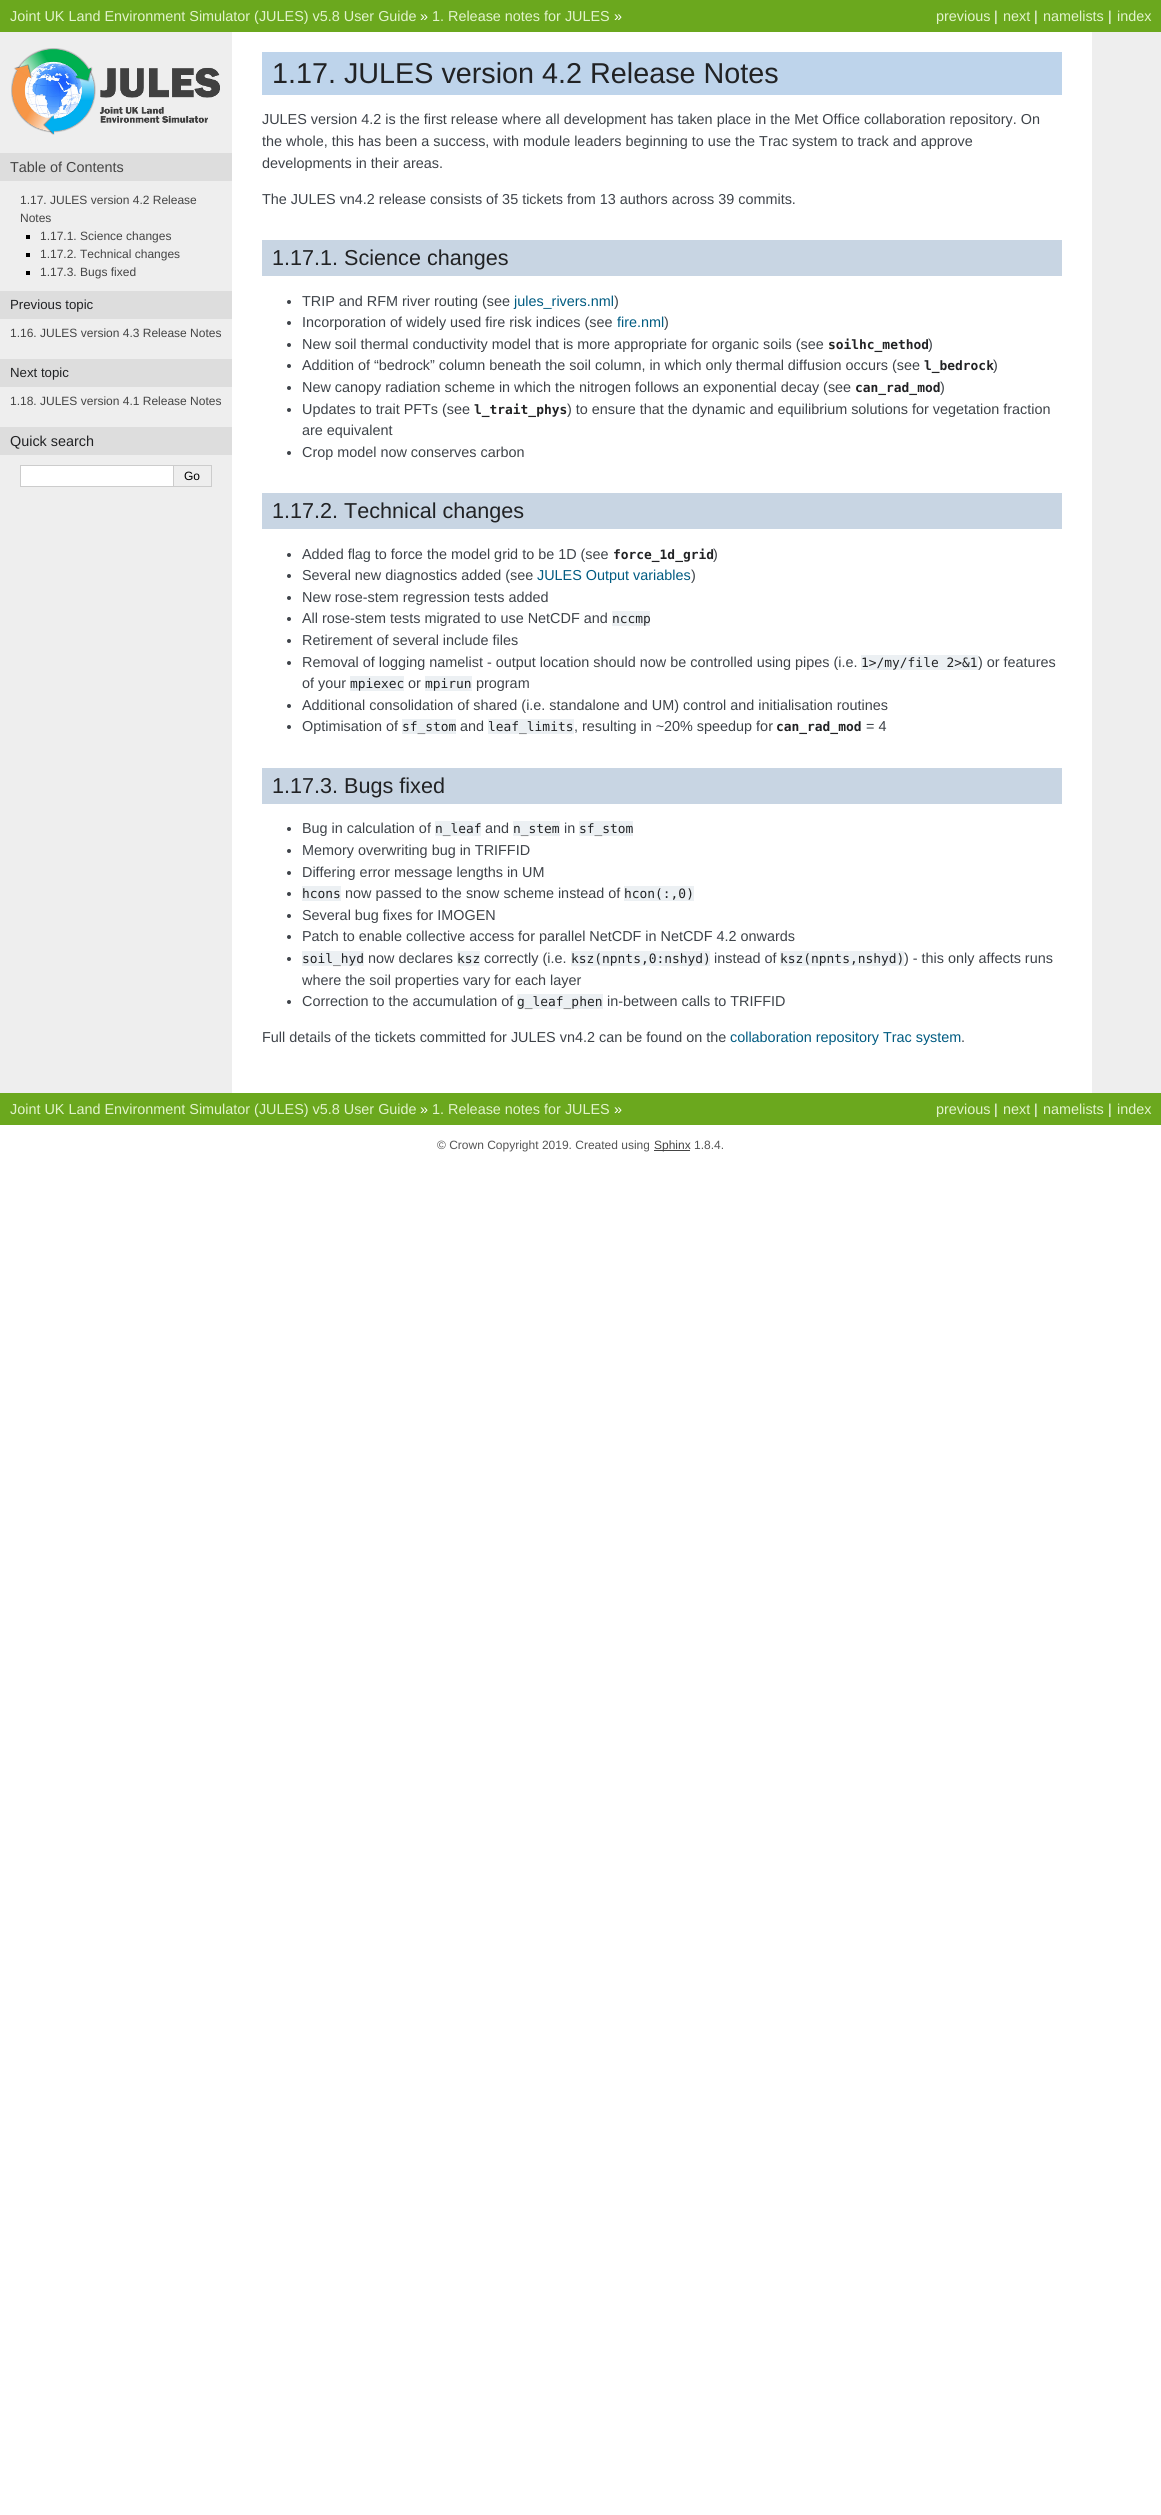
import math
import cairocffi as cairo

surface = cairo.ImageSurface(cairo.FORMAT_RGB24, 1161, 2515)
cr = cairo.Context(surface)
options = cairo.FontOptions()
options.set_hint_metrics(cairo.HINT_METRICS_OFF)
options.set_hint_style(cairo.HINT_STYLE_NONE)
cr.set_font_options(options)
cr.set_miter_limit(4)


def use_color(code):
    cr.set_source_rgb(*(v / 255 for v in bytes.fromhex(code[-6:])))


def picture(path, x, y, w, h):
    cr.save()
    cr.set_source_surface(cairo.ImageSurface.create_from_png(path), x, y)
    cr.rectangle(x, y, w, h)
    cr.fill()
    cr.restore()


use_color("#ffffff")
cr.paint()
use_color("#6ba81e")
cr.rectangle(0, 0, 1161, 32)
cr.fill()
cr.select_font_face("Liberation Sans")
cr.set_font_size(14.4)
use_color("#e2f3cc")
cr.move_to(10, 21)
cr.show_text("Joint UK Land Environment Simulator (JULES) v5.8 User Guide")
use_color("#ffffff")
cr.move_to(420, 21)
cr.show_text("»")
use_color("#e2f3cc")
cr.move_to(432, 21)
cr.show_text("1. Release notes for JULES")
use_color("#ffffff")
cr.move_to(614, 21)
cr.show_text("»")
use_color("#e2f3cc")
cr.move_to(936, 21)
cr.show_text("previous")
use_color("#ffffff")
cr.move_to(994, 21)
cr.show_text("|")
use_color("#e2f3cc")
cr.move_to(1003, 21)
cr.show_text("next")
use_color("#ffffff")
cr.move_to(1034, 21)
cr.show_text("|")
use_color("#e2f3cc")
cr.move_to(1043, 21)
cr.show_text("namelists")
use_color("#ffffff")
cr.move_to(1108, 21)
cr.show_text("|")
use_color("#e2f3cc")
cr.move_to(1117, 21)
cr.show_text("index")
use_color("#eeeeee")
cr.rectangle(0, 32, 1161, 1061)
cr.fill()
picture("img1.png", 11, 48, 209, 87)
use_color("#dddddd")
cr.rectangle(0, 153, 232, 28)
cr.fill()
use_color("#444444")
cr.move_to(10, 172)
cr.show_text("Table of Contents")
cr.set_font_size(12)
cr.move_to(20, 204)
cr.show_text("1.17. JULES version 4.2 Release")
cr.move_to(20, 222)
cr.show_text("Notes")
use_color("#000000")
cr.rectangle(26, 235, 4, 4)
cr.fill()
use_color("#444444")
cr.move_to(40, 240)
cr.show_text("1.17.1. Science changes")
use_color("#000000")
cr.rectangle(26, 253, 4, 4)
cr.fill()
use_color("#444444")
cr.move_to(40, 258)
cr.show_text("1.17.2. Technical changes")
use_color("#000000")
cr.rectangle(26, 271, 4, 4)
cr.fill()
use_color("#444444")
cr.move_to(40, 276)
cr.show_text("1.17.3. Bugs fixed")
use_color("#dddddd")
cr.rectangle(0, 291, 232, 28)
cr.fill()
cr.set_font_size(13.25)
use_color("#212224")
cr.move_to(10, 309)
cr.show_text("Previous topic")
cr.set_font_size(12)
use_color("#444444")
cr.move_to(10, 337)
cr.show_text("1.16. JULES version 4.3 Release Notes")
use_color("#dddddd")
cr.rectangle(0, 359, 232, 28)
cr.fill()
cr.set_font_size(13.25)
use_color("#212224")
cr.move_to(10, 377)
cr.show_text("Next topic")
cr.set_font_size(12)
use_color("#444444")
cr.move_to(10, 405)
cr.show_text("1.18. JULES version 4.1 Release Notes")
use_color("#dddddd")
cr.rectangle(0, 427, 232, 28)
cr.fill()
cr.set_font_size(14.4)
use_color("#212224")
cr.move_to(10, 446)
cr.show_text("Quick search")
use_color("#ffffff")
cr.rectangle(20.5, 465.5, 153, 21)
cr.fill_preserve()
use_color("#cccccc")
cr.set_line_width(1)
cr.stroke()
cr.rectangle(174, 465, 38, 1)
cr.fill()
cr.rectangle(211, 465, 1, 22)
cr.fill()
cr.rectangle(174, 486, 38, 1)
cr.fill()
cr.set_font_size(12)
use_color("#000000")
cr.move_to(184, 480)
cr.show_text("Go")
use_color("#ffffff")
cr.rectangle(232, 32, 860, 1061)
cr.fill()
use_color("#bed4eb")
cr.rectangle(262, 52, 800, 43)
cr.fill()
cr.set_font_size(28.75)
use_color("#212224")
cr.move_to(272, 83)
cr.show_text("1.17. JULES version 4.2 Release Notes")
cr.set_font_size(14.4)
use_color("#3e4349")
cr.move_to(262, 124)
cr.show_text("JULES version 4.2 is the first release where all development has taken place in the Met Office collaboration repository. On")
cr.move_to(262, 146)
cr.show_text("the whole, this has been a success, with module leaders beginning to use the Trac system to track and approve")
cr.move_to(262, 168)
cr.show_text("developments in their areas.")
cr.move_to(262, 204)
cr.show_text("The JULES vn4.2 release consists of 35 tickets from 13 authors across 39 commits.")
use_color("#c8d5e3")
cr.rectangle(262, 240, 800, 36)
cr.fill()
cr.set_font_size(21.6)
use_color("#212224")
cr.move_to(272, 265)
cr.show_text("1.17.1. Science changes")
use_color("#3e4349")
cr.new_path()
cr.arc(289, 302, 2, 0, 2 * math.pi)
cr.fill()
cr.set_font_size(14.4)
cr.move_to(302, 306)
cr.show_text("TRIP and RFM river routing (see")
use_color("#005b81")
cr.move_to(514, 306)
cr.show_text("jules_rivers.nml")
use_color("#3e4349")
cr.move_to(614, 306)
cr.show_text(")")
cr.new_path()
cr.arc(289, 323, 2, 0, 2 * math.pi)
cr.fill()
cr.move_to(302, 327)
cr.show_text("Incorporation of widely used fire risk indices (see")
use_color("#005b81")
cr.move_to(617, 327)
cr.show_text("fire.nml")
use_color("#3e4349")
cr.move_to(664, 327)
cr.show_text(")")
cr.new_path()
cr.arc(289, 345, 2, 0, 2 * math.pi)
cr.fill()
cr.move_to(302, 349)
cr.show_text("New soil thermal conductivity model that is more appropriate for organic soils (see")
cr.select_font_face("DejaVu Sans Mono", cairo.FONT_SLANT_NORMAL, cairo.FONT_WEIGHT_BOLD)
cr.set_font_size(12.9)
use_color("#212224")
cr.move_to(828, 349)
cr.show_text("soilhc_method")
cr.select_font_face("Liberation Sans")
cr.set_font_size(14.4)
use_color("#3e4349")
cr.move_to(928, 349)
cr.show_text(")")
cr.new_path()
cr.arc(289, 366, 2, 0, 2 * math.pi)
cr.fill()
cr.move_to(302, 370)
cr.show_text("Addition of “bedrock” column beneath the soil column, in which only thermal diffusion occurs (see")
cr.select_font_face("DejaVu Sans Mono", cairo.FONT_SLANT_NORMAL, cairo.FONT_WEIGHT_BOLD)
cr.set_font_size(12.9)
use_color("#212224")
cr.move_to(924, 370)
cr.show_text("l_bedrock")
cr.select_font_face("Liberation Sans")
cr.set_font_size(14.4)
use_color("#3e4349")
cr.move_to(993, 370)
cr.show_text(")")
cr.new_path()
cr.arc(289, 388, 2, 0, 2 * math.pi)
cr.fill()
cr.move_to(302, 392)
cr.show_text("New canopy radiation scheme in which the nitrogen follows an exponential decay (see")
cr.select_font_face("DejaVu Sans Mono", cairo.FONT_SLANT_NORMAL, cairo.FONT_WEIGHT_BOLD)
cr.set_font_size(12.9)
use_color("#212224")
cr.move_to(855, 392)
cr.show_text("can_rad_mod")
cr.select_font_face("Liberation Sans")
cr.set_font_size(14.4)
use_color("#3e4349")
cr.move_to(940, 392)
cr.show_text(")")
cr.new_path()
cr.arc(289, 410, 2, 0, 2 * math.pi)
cr.fill()
cr.move_to(302, 414)
cr.show_text("Updates to trait PFTs (see")
cr.select_font_face("DejaVu Sans Mono", cairo.FONT_SLANT_NORMAL, cairo.FONT_WEIGHT_BOLD)
cr.set_font_size(12.9)
use_color("#212224")
cr.move_to(474, 414)
cr.show_text("l_trait_phys")
cr.select_font_face("Liberation Sans")
cr.set_font_size(14.4)
use_color("#3e4349")
cr.move_to(567, 414)
cr.show_text(") to ensure that the dynamic and equilibrium solutions for vegetation fraction")
cr.move_to(302, 435)
cr.show_text("are equivalent")
cr.new_path()
cr.arc(289, 453, 2, 0, 2 * math.pi)
cr.fill()
cr.move_to(302, 457)
cr.show_text("Crop model now conserves carbon")
use_color("#c8d5e3")
cr.rectangle(262, 493, 800, 36)
cr.fill()
cr.set_font_size(21.6)
use_color("#212224")
cr.move_to(272, 518)
cr.show_text("1.17.2. Technical changes")
use_color("#3e4349")
cr.new_path()
cr.arc(289, 555, 2, 0, 2 * math.pi)
cr.fill()
cr.set_font_size(14.4)
cr.move_to(302, 559)
cr.show_text("Added flag to force the model grid to be 1D (see")
cr.select_font_face("DejaVu Sans Mono", cairo.FONT_SLANT_NORMAL, cairo.FONT_WEIGHT_BOLD)
cr.set_font_size(12.9)
use_color("#212224")
cr.move_to(613, 559)
cr.show_text("force_1d_grid")
cr.select_font_face("Liberation Sans")
cr.set_font_size(14.4)
use_color("#3e4349")
cr.move_to(713, 559)
cr.show_text(")")
cr.new_path()
cr.arc(289, 576, 2, 0, 2 * math.pi)
cr.fill()
cr.move_to(302, 580)
cr.show_text("Several new diagnostics added (see")
use_color("#005b81")
cr.move_to(537, 580)
cr.show_text("JULES Output variables")
use_color("#3e4349")
cr.move_to(691, 580)
cr.show_text(")")
cr.new_path()
cr.arc(289, 598, 2, 0, 2 * math.pi)
cr.fill()
cr.move_to(302, 602)
cr.show_text("New rose-stem regression tests added")
cr.new_path()
cr.arc(289, 619, 2, 0, 2 * math.pi)
cr.fill()
cr.move_to(302, 623)
cr.show_text("All rose-stem tests migrated to use NetCDF and")
use_color("#ecf0f3")
cr.rectangle(612, 611, 38, 15)
cr.fill()
cr.select_font_face("DejaVu Sans Mono")
cr.set_font_size(12.9)
use_color("#212224")
cr.move_to(612, 623)
cr.show_text("nccmp")
use_color("#3e4349")
cr.new_path()
cr.arc(289, 641, 2, 0, 2 * math.pi)
cr.fill()
cr.select_font_face("Liberation Sans")
cr.set_font_size(14.4)
cr.move_to(302, 645)
cr.show_text("Retirement of several include files")
cr.new_path()
cr.arc(289, 663, 2, 0, 2 * math.pi)
cr.fill()
cr.move_to(302, 667)
cr.show_text("Removal of logging namelist - output location should now be controlled using pipes (i.e.")
use_color("#ecf0f3")
cr.rectangle(861, 655, 117, 15)
cr.fill()
cr.select_font_face("DejaVu Sans Mono")
cr.set_font_size(12.9)
use_color("#212224")
cr.move_to(861, 667)
cr.show_text("1>/my/file 2>&1")
cr.select_font_face("Liberation Sans")
cr.set_font_size(14.4)
use_color("#3e4349")
cr.move_to(978, 667)
cr.show_text(") or features")
cr.move_to(302, 688)
cr.show_text("of your")
use_color("#ecf0f3")
cr.rectangle(350, 676, 54, 15)
cr.fill()
cr.select_font_face("DejaVu Sans Mono")
cr.set_font_size(12.9)
use_color("#212224")
cr.move_to(350, 688)
cr.show_text("mpiexec")
cr.select_font_face("Liberation Sans")
cr.set_font_size(14.4)
use_color("#3e4349")
cr.move_to(408, 688)
cr.show_text("or")
use_color("#ecf0f3")
cr.rectangle(425, 676, 47, 15)
cr.fill()
cr.select_font_face("DejaVu Sans Mono")
cr.set_font_size(12.9)
use_color("#212224")
cr.move_to(425, 688)
cr.show_text("mpirun")
cr.select_font_face("Liberation Sans")
cr.set_font_size(14.4)
use_color("#3e4349")
cr.move_to(476, 688)
cr.show_text("program")
cr.new_path()
cr.arc(289, 706, 2, 0, 2 * math.pi)
cr.fill()
cr.move_to(302, 710)
cr.show_text("Additional consolidation of shared (i.e. standalone and UM) control and initialisation routines")
cr.new_path()
cr.arc(289, 727, 2, 0, 2 * math.pi)
cr.fill()
cr.move_to(302, 731)
cr.show_text("Optimisation of")
use_color("#ecf0f3")
cr.rectangle(402, 719, 54, 15)
cr.fill()
cr.select_font_face("DejaVu Sans Mono")
cr.set_font_size(12.9)
use_color("#212224")
cr.move_to(402, 731)
cr.show_text("sf_stom")
cr.select_font_face("Liberation Sans")
cr.set_font_size(14.4)
use_color("#3e4349")
cr.move_to(460, 731)
cr.show_text("and")
use_color("#ecf0f3")
cr.rectangle(488, 719, 86, 15)
cr.fill()
cr.select_font_face("DejaVu Sans Mono")
cr.set_font_size(12.9)
use_color("#212224")
cr.move_to(488, 731)
cr.show_text("leaf_limits")
cr.select_font_face("Liberation Sans")
cr.set_font_size(14.4)
use_color("#3e4349")
cr.move_to(574, 731)
cr.show_text(", resulting in ~20% speedup for")
cr.select_font_face("DejaVu Sans Mono", cairo.FONT_SLANT_NORMAL, cairo.FONT_WEIGHT_BOLD)
cr.set_font_size(12.9)
use_color("#212224")
cr.move_to(776, 731)
cr.show_text("can_rad_mod")
cr.select_font_face("Liberation Sans")
cr.set_font_size(14.4)
use_color("#3e4349")
cr.move_to(866, 731)
cr.show_text("= 4")
use_color("#c8d5e3")
cr.rectangle(262, 768, 800, 36)
cr.fill()
cr.set_font_size(21.6)
use_color("#212224")
cr.move_to(272, 793)
cr.show_text("1.17.3. Bugs fixed")
use_color("#3e4349")
cr.new_path()
cr.arc(289, 829, 2, 0, 2 * math.pi)
cr.fill()
cr.set_font_size(14.4)
cr.move_to(302, 833)
cr.show_text("Bug in calculation of")
use_color("#ecf0f3")
cr.rectangle(435, 821, 46, 15)
cr.fill()
cr.select_font_face("DejaVu Sans Mono")
cr.set_font_size(12.9)
use_color("#212224")
cr.move_to(435, 833)
cr.show_text("n_leaf")
cr.select_font_face("Liberation Sans")
cr.set_font_size(14.4)
use_color("#3e4349")
cr.move_to(485, 833)
cr.show_text("and")
use_color("#ecf0f3")
cr.rectangle(513, 821, 47, 15)
cr.fill()
cr.select_font_face("DejaVu Sans Mono")
cr.set_font_size(12.9)
use_color("#212224")
cr.move_to(513, 833)
cr.show_text("n_stem")
cr.select_font_face("Liberation Sans")
cr.set_font_size(14.4)
use_color("#3e4349")
cr.move_to(564, 833)
cr.show_text("in")
use_color("#ecf0f3")
cr.rectangle(579, 821, 54, 15)
cr.fill()
cr.select_font_face("DejaVu Sans Mono")
cr.set_font_size(12.9)
use_color("#212224")
cr.move_to(579, 833)
cr.show_text("sf_stom")
use_color("#3e4349")
cr.new_path()
cr.arc(289, 851, 2, 0, 2 * math.pi)
cr.fill()
cr.select_font_face("Liberation Sans")
cr.set_font_size(14.4)
cr.move_to(302, 855)
cr.show_text("Memory overwriting bug in TRIFFID")
cr.new_path()
cr.arc(289, 873, 2, 0, 2 * math.pi)
cr.fill()
cr.move_to(302, 877)
cr.show_text("Differing error message lengths in UM")
cr.new_path()
cr.arc(289, 894, 2, 0, 2 * math.pi)
cr.fill()
use_color("#ecf0f3")
cr.rectangle(302, 886, 39, 15)
cr.fill()
cr.select_font_face("DejaVu Sans Mono")
cr.set_font_size(12.9)
use_color("#212224")
cr.move_to(302, 898)
cr.show_text("hcons")
cr.select_font_face("Liberation Sans")
cr.set_font_size(14.4)
use_color("#3e4349")
cr.move_to(345, 898)
cr.show_text("now passed to the snow scheme instead of")
use_color("#ecf0f3")
cr.rectangle(624, 886, 70, 15)
cr.fill()
cr.select_font_face("DejaVu Sans Mono")
cr.set_font_size(12.9)
use_color("#212224")
cr.move_to(624, 898)
cr.show_text("hcon(:,0)")
use_color("#3e4349")
cr.new_path()
cr.arc(289, 916, 2, 0, 2 * math.pi)
cr.fill()
cr.select_font_face("Liberation Sans")
cr.set_font_size(14.4)
cr.move_to(302, 920)
cr.show_text("Several bug fixes for IMOGEN")
cr.new_path()
cr.arc(289, 937, 2, 0, 2 * math.pi)
cr.fill()
cr.move_to(302, 941)
cr.show_text("Patch to enable collective access for parallel NetCDF in NetCDF 4.2 onwards")
cr.new_path()
cr.arc(289, 959, 2, 0, 2 * math.pi)
cr.fill()
use_color("#ecf0f3")
cr.rectangle(302, 951, 62, 15)
cr.fill()
cr.select_font_face("DejaVu Sans Mono")
cr.set_font_size(12.9)
use_color("#212224")
cr.move_to(302, 963)
cr.show_text("soil_hyd")
cr.select_font_face("Liberation Sans")
cr.set_font_size(14.4)
use_color("#3e4349")
cr.move_to(368, 963)
cr.show_text("now declares")
use_color("#ecf0f3")
cr.rectangle(457, 951, 23, 15)
cr.fill()
cr.select_font_face("DejaVu Sans Mono")
cr.set_font_size(12.9)
use_color("#212224")
cr.move_to(457, 963)
cr.show_text("ksz")
cr.select_font_face("Liberation Sans")
cr.set_font_size(14.4)
use_color("#3e4349")
cr.move_to(484, 963)
cr.show_text("correctly (i.e.")
use_color("#ecf0f3")
cr.rectangle(571, 951, 139, 15)
cr.fill()
cr.select_font_face("DejaVu Sans Mono")
cr.set_font_size(12.9)
use_color("#212224")
cr.move_to(571, 963)
cr.show_text("ksz(npnts,0:nshyd)")
cr.select_font_face("Liberation Sans")
cr.set_font_size(14.4)
use_color("#3e4349")
cr.move_to(714, 963)
cr.show_text("instead of")
use_color("#ecf0f3")
cr.rectangle(780, 951, 124, 15)
cr.fill()
cr.select_font_face("DejaVu Sans Mono")
cr.set_font_size(12.9)
use_color("#212224")
cr.move_to(780, 963)
cr.show_text("ksz(npnts,nshyd)")
cr.select_font_face("Liberation Sans")
cr.set_font_size(14.4)
use_color("#3e4349")
cr.move_to(904, 963)
cr.show_text(") - this only affects runs")
cr.move_to(302, 985)
cr.show_text("where the soil properties vary for each layer")
cr.new_path()
cr.arc(289, 1002, 2, 0, 2 * math.pi)
cr.fill()
cr.move_to(302, 1006)
cr.show_text("Correction to the accumulation of")
use_color("#ecf0f3")
cr.rectangle(517, 994, 86, 15)
cr.fill()
cr.select_font_face("DejaVu Sans Mono")
cr.set_font_size(12.9)
use_color("#212224")
cr.move_to(517, 1006)
cr.show_text("g_leaf_phen")
cr.select_font_face("Liberation Sans")
cr.set_font_size(14.4)
use_color("#3e4349")
cr.move_to(607, 1006)
cr.show_text("in-between calls to TRIFFID")
cr.move_to(262, 1042)
cr.show_text("Full details of the tickets committed for JULES vn4.2 can be found on the")
use_color("#005b81")
cr.move_to(730, 1042)
cr.show_text("collaboration repository Trac system")
use_color("#3e4349")
cr.move_to(961, 1042)
cr.show_text(".")
use_color("#6ba81e")
cr.rectangle(0, 1093, 1161, 32)
cr.fill()
use_color("#e2f3cc")
cr.move_to(10, 1114)
cr.show_text("Joint UK Land Environment Simulator (JULES) v5.8 User Guide")
use_color("#ffffff")
cr.move_to(420, 1114)
cr.show_text("»")
use_color("#e2f3cc")
cr.move_to(432, 1114)
cr.show_text("1. Release notes for JULES")
use_color("#ffffff")
cr.move_to(614, 1114)
cr.show_text("»")
use_color("#e2f3cc")
cr.move_to(936, 1114)
cr.show_text("previous")
use_color("#ffffff")
cr.move_to(994, 1114)
cr.show_text("|")
use_color("#e2f3cc")
cr.move_to(1003, 1114)
cr.show_text("next")
use_color("#ffffff")
cr.move_to(1034, 1114)
cr.show_text("|")
use_color("#e2f3cc")
cr.move_to(1043, 1114)
cr.show_text("namelists")
use_color("#ffffff")
cr.move_to(1108, 1114)
cr.show_text("|")
use_color("#e2f3cc")
cr.move_to(1117, 1114)
cr.show_text("index")
cr.set_font_size(12)
use_color("#555555")
cr.move_to(437, 1149)
cr.show_text("© Crown Copyright 2019. Created using")
use_color("#444444")
cr.rectangle(654, 1150, 36, 1)
cr.fill()
cr.move_to(654, 1149)
cr.show_text("Sphinx")
use_color("#555555")
cr.move_to(694, 1149)
cr.show_text("1.8.4.")
surface.write_to_png("result.png")
